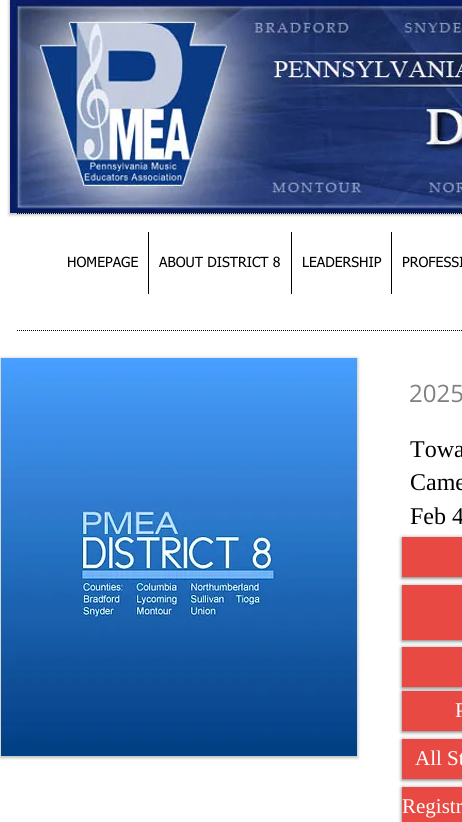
import math
import cairocffi as cairo

surface = cairo.ImageSurface(cairo.FORMAT_RGB24, 462, 822)
cr = cairo.Context(surface)
options = cairo.FontOptions()
options.set_hint_metrics(cairo.HINT_METRICS_OFF)
options.set_hint_style(cairo.HINT_STYLE_NONE)
cr.set_font_options(options)
cr.set_miter_limit(4)


def use_color(code):
    cr.set_source_rgb(*(v / 255 for v in bytes.fromhex(code[-6:])))


def round_rect(x, y, w, h, r):
    cr.new_sub_path()
    for i, (u, v) in enumerate([(x + w - r, y + h - r), (x + r, y + h - r), (x + r, y + r), (x + w - r, y + r)]):
        cr.arc(u, v, r, i * math.pi / 2, (i + 1) * math.pi / 2)
    cr.close_path()


def shadow(x, y, w, h, r, blur, alpha):
    cr.push_group_with_content(cairo.CONTENT_ALPHA)
    cr.set_operator(cairo.OPERATOR_SOURCE)
    for i in range(15, -16, -2):
        e = blur * i / 6
        if min(w, h) + 2 * e > 0:
            cr.set_source_rgba(0, 0, 0, alpha * math.erfc((i - 1) / 8.5) / 2)
            round_rect(x - e, y - e, w + 2 * e, h + 2 * e, max(0, min(r + e + blur * .6, min(w, h) / 2 + e)))
            cr.fill()
    cr.mask(cr.pop_group())


def picture(path, x, y, w, h):
    cr.save()
    cr.set_source_surface(cairo.ImageSurface.create_from_png(path), x, y)
    cr.rectangle(x, y, w, h)
    cr.fill()
    cr.restore()


use_color("#ffffff")
cr.paint()
use_color("#000000")
shadow(9, 0, 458, 215, 0, 1.5, 0.25)
picture("img1.png", 10, 0, 452, 213)
cr.new_path()
cr.move_to(17, 213.5)
cr.line_to(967, 213.5)
use_color("#000000")
cr.set_line_width(1)
cr.set_dash([1, 1])
cr.stroke()
cr.select_font_face("tahoma")
cr.set_font_size(14)
cr.move_to(67, 267)
cr.show_text("HOMEPAGE")
cr.rectangle(148, 232, 1, 62)
cr.fill()
cr.move_to(159, 267)
cr.show_text("ABOUT DISTRICT 8")
cr.rectangle(291, 232, 1, 62)
cr.fill()
cr.move_to(302, 267)
cr.show_text("LEADERSHIP")
cr.rectangle(391, 232, 1, 62)
cr.fill()
cr.move_to(402, 267)
cr.show_text("PROFESSI")
cr.new_path()
cr.move_to(17, 330.5)
cr.line_to(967, 330.5)
cr.stroke()
use_color("#000000")
shadow(0, 358, 358, 400, 0, 1.5, 0.25)
picture("img2.png", 1, 358, 356, 398)
cr.select_font_face("Open Sans")
cr.set_font_size(24)
use_color("#828181")
cr.move_to(409, 402)
cr.show_text("2025")
cr.select_font_face("Liberation Serif")
use_color("#000000")
cr.move_to(410, 457)
cr.show_text("Towa")
cr.move_to(410, 490)
cr.show_text("Came")
cr.move_to(410, 524)
cr.show_text("Feb 4")
use_color("#000000")
shadow(402, 538, 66, 40, 0, 2, 0.6)
use_color("#e84a43")
cr.rectangle(402, 537, 60, 40)
cr.fill()
use_color("#000000")
shadow(402, 586, 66, 55, 0, 2, 0.6)
use_color("#e84a43")
cr.rectangle(402, 585, 60, 55)
cr.fill()
use_color("#000000")
shadow(402, 648, 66, 40, 0, 2, 0.6)
use_color("#e84a43")
cr.rectangle(402, 647, 60, 40)
cr.fill()
use_color("#000000")
shadow(402, 692, 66, 40, 0, 2, 0.6)
use_color("#e84a43")
cr.rectangle(402, 691, 60, 40)
cr.fill()
cr.set_font_size(21)
use_color("#ffffff")
cr.move_to(455, 717)
cr.show_text("P")
use_color("#000000")
shadow(402, 740, 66, 40, 0, 2, 0.6)
use_color("#e84a43")
cr.rectangle(402, 739, 60, 40)
cr.fill()
use_color("#ffffff")
cr.move_to(415, 765)
cr.show_text("All St")
use_color("#000000")
shadow(402, 788, 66, 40, 0, 2, 0.6)
use_color("#e84a43")
cr.rectangle(402, 787, 60, 35)
cr.fill()
use_color("#ffffff")
cr.move_to(402, 813)
cr.show_text("Registr")
surface.write_to_png("result.png")
